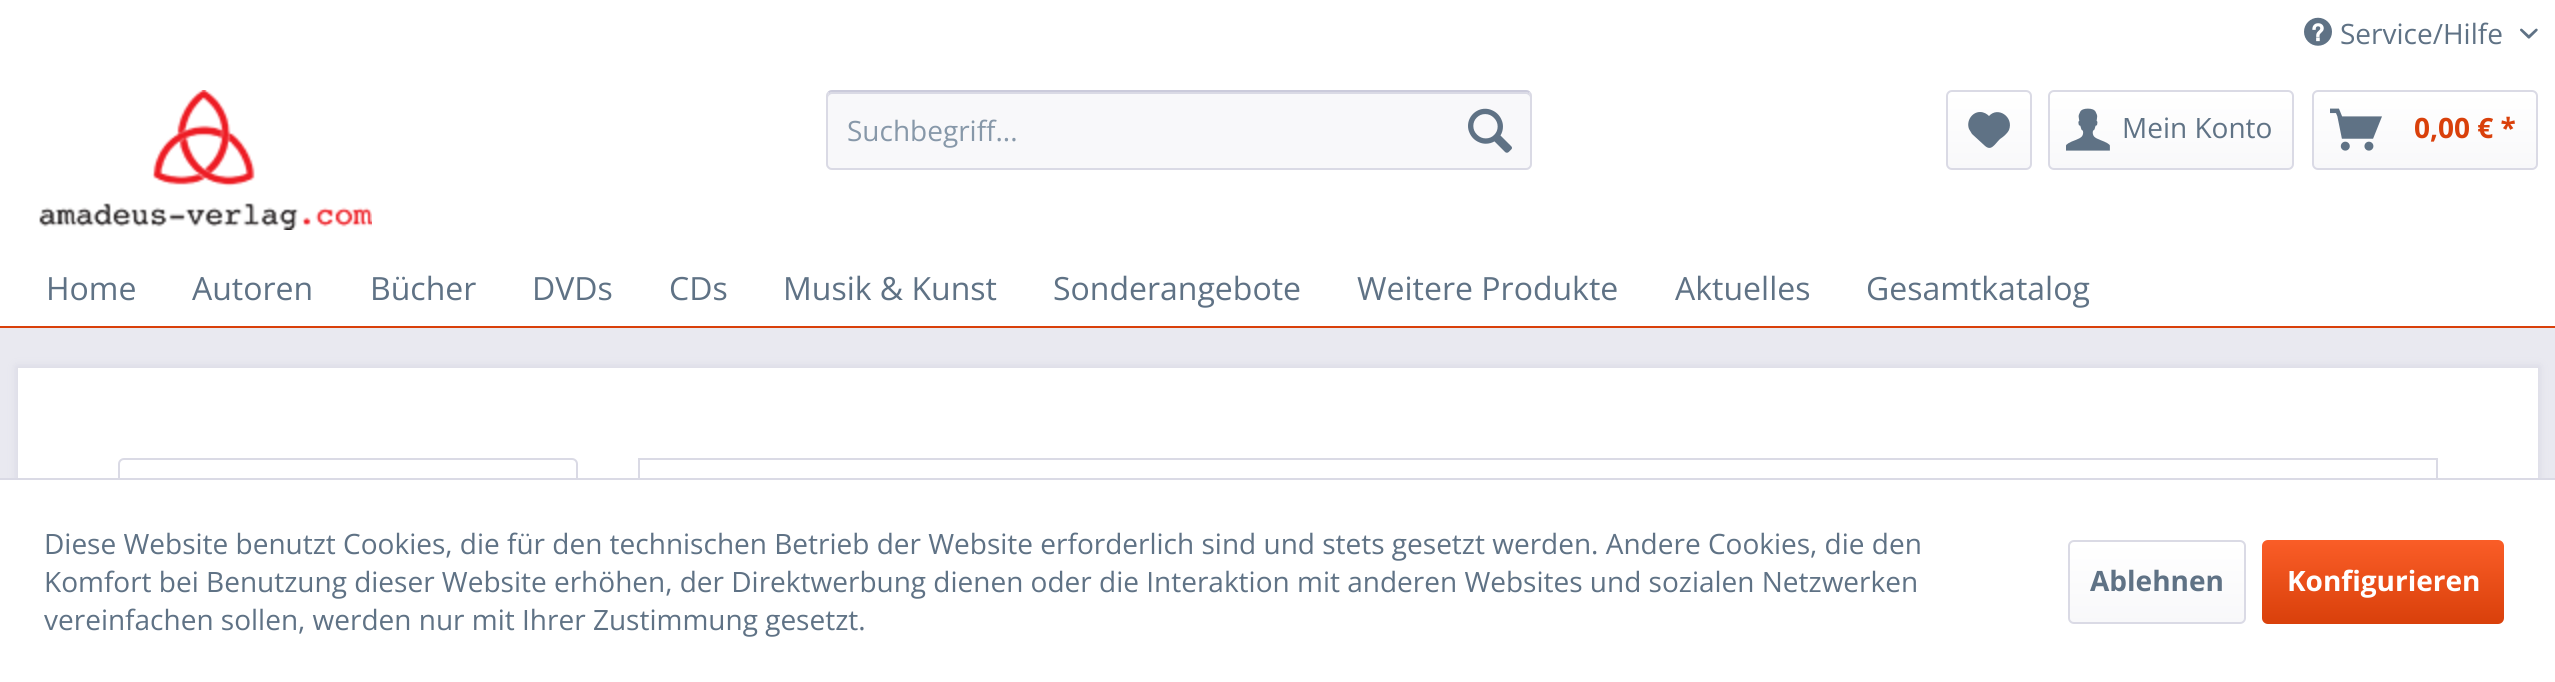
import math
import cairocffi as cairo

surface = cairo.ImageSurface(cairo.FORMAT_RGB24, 2555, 682)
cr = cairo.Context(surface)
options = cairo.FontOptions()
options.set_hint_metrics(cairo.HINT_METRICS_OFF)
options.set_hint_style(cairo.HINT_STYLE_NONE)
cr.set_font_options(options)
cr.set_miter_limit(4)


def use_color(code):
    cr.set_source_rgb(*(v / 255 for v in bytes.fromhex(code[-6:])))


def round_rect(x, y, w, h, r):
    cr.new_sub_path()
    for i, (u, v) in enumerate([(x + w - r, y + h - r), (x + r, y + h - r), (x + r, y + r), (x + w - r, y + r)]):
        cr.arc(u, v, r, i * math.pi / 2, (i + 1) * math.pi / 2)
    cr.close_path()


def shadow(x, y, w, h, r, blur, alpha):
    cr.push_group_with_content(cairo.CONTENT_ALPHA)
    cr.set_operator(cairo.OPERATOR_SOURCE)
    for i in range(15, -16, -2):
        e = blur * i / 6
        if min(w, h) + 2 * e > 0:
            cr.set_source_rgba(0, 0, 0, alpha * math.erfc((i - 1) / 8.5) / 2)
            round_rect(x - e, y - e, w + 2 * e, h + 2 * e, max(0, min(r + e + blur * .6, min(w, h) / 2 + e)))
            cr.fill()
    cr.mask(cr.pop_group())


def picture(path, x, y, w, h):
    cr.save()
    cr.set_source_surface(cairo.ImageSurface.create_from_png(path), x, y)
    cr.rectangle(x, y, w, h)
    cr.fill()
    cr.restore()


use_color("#e9e9f0")
cr.paint()
use_color("#ffffff")
cr.rectangle(0, 0, 2555, 326)
cr.fill()
picture("img1.png", 2304, 17, 28, 29)
cr.select_font_face("Open Sans")
cr.set_font_size(28)
use_color("#5f7285")
cr.move_to(2340, 44)
cr.show_text("Service/Hilfe")
picture("img2.png", 2520, 28, 18, 11)
picture("img3.png", 39, 90, 333, 140)
use_color("#f8f8fa")
round_rect(826, 90, 706, 80, 6)
cr.fill()
use_color("#dadae5")
cr.new_path()
cr.move_to(832, 94)
cr.line_to(1526, 94)
cr.curve_to(1528, 94, 1530, 96, 1530, 98)
cr.curve_to(1530, 95, 1530, 92, 1526, 92)
cr.line_to(832, 92)
cr.curve_to(828, 92, 828, 95, 828, 98)
cr.curve_to(828, 96, 830, 94, 832, 94)
cr.close_path()
cr.fill()
cr.new_path()
cr.move_to(828.5, 92.5)
cr.curve_to(829.5, 91.5, 830.5, 91, 832, 91)
cr.line_to(1526, 91)
cr.curve_to(1527.5, 91, 1528.5, 91.5, 1529.5, 92.5)
use_color("#cbcbdb")
cr.stroke()
cr.new_path()
cr.move_to(1529.5, 92.5)
cr.curve_to(1530.5, 93.5, 1531, 94.5, 1531, 96)
cr.line_to(1531, 164)
cr.curve_to(1531, 165.5, 1530.5, 166.5, 1529.5, 167.5)
cr.curve_to(1528.5, 168.5, 1527.5, 169, 1526, 169)
cr.line_to(832, 169)
cr.curve_to(830.5, 169, 829.5, 168.5, 828.5, 167.5)
cr.curve_to(827.5, 166.5, 827, 165.5, 827, 164)
cr.line_to(827, 96)
cr.curve_to(827, 94.5, 827.5, 93.5, 828.5, 92.5)
use_color("#dadae5")
cr.stroke()
use_color("#8798a9")
cr.move_to(847, 141)
cr.show_text("Suchbegriff...")
picture("img4.png", 1468, 108, 44, 45)
gradient = cairo.LinearGradient(1989, 92, 1989, 168)
gradient.add_color_stop_rgba(0, 1, 1, 1, 1)
gradient.add_color_stop_rgba(1, 0.973, 0.973, 0.98, 1)
cr.set_source(gradient)
round_rect(1948, 92, 82, 76, 4)
cr.fill()
round_rect(1947, 91, 84, 78, 5)
use_color("#dadae5")
cr.stroke()
use_color("#5f7285")
cr.new_path()
cr.move_to(1980, 112)
cr.curve_to(1972, 112, 1966, 121, 1969, 129)
cr.line_to(1972, 134)
cr.line_to(1984, 145)
cr.curve_to(1991, 152, 1994, 145, 2000, 139)
cr.curve_to(2003, 137, 2007, 134, 2009, 130)
cr.curve_to(2014, 117, 1998, 106, 1989, 116)
cr.curve_to(1987, 114, 1984, 112, 1980, 112)
cr.close_path()
cr.fill()
gradient = cairo.LinearGradient(2171, 92, 2171, 168)
gradient.add_color_stop_rgba(0, 1, 1, 1, 1)
gradient.add_color_stop_rgba(1, 0.973, 0.973, 0.98, 1)
cr.set_source(gradient)
round_rect(2050, 92, 242, 76, 4)
cr.fill()
round_rect(2049, 91, 244, 78, 5)
use_color("#dadae5")
cr.stroke()
picture("img5.png", 2066, 108, 44, 43)
use_color("#5f7285")
cr.move_to(2122, 138)
cr.show_text("Mein Konto")
gradient = cairo.LinearGradient(2425, 92, 2425, 168)
gradient.add_color_stop_rgba(0, 1, 1, 1, 1)
gradient.add_color_stop_rgba(1, 0.973, 0.973, 0.98, 1)
cr.set_source(gradient)
round_rect(2314, 92, 222, 76, 4)
cr.fill()
round_rect(2313, 91, 224, 78, 5)
use_color("#dadae5")
cr.stroke()
picture("img6.png", 2330, 108, 52, 43)
cr.select_font_face("Open Sans", cairo.FONT_SLANT_NORMAL, cairo.FONT_WEIGHT_BOLD)
use_color("#d9400b")
cr.move_to(2414, 138)
cr.show_text("0,00 € *")
cr.rectangle(0, 326, 2555, 2)
cr.fill()
cr.select_font_face("Open Sans")
cr.set_font_size(32)
use_color("#5f7285")
cr.move_to(46, 300)
cr.show_text("Home")
cr.move_to(192, 300)
cr.show_text("Autoren")
cr.move_to(370, 300)
cr.show_text("Bücher")
cr.move_to(532, 300)
cr.show_text("DVDs")
cr.move_to(669, 300)
cr.show_text("CDs")
cr.move_to(783, 300)
cr.show_text("Musik & Kunst")
cr.move_to(1053, 300)
cr.show_text("Sonderangebote")
cr.move_to(1357, 300)
cr.show_text("Weitere Produkte")
cr.move_to(1675, 300)
cr.show_text("Aktuelles")
cr.move_to(1866, 300)
cr.show_text("Gesamtkatalog")
use_color("#dadae5")
shadow(16, 366, 2524, 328, 0, 4, 1)
use_color("#ffffff")
cr.rectangle(18, 368, 2520, 110)
cr.fill()
round_rect(119, 459, 458, 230, 5)
use_color("#dadae5")
cr.stroke()
cr.rectangle(639, 459, 1798, 200)
cr.stroke()
use_color("#ffffff")
cr.rectangle(0, 480, 2555, 202)
cr.fill()
use_color("#dadae5")
cr.rectangle(0, 478, 2555, 2)
cr.fill()
cr.set_font_size(28)
use_color("#5f7285")
cr.move_to(44, 554)
cr.show_text("Diese Website benutzt Cookies, die für den technischen Betrieb der Website erforderlich sind und stets gesetzt werden. Andere Cookies, die den")
cr.move_to(44, 592)
cr.show_text("Komfort bei Benutzung dieser Website erhöhen, der Direktwerbung dienen oder die Interaktion mit anderen Websites und sozialen Netzwerken")
cr.move_to(44, 630)
cr.show_text("vereinfachen sollen, werden nur mit Ihrer Zustimmung gesetzt.")
gradient = cairo.LinearGradient(2157, 542, 2157, 622)
gradient.add_color_stop_rgba(0, 1, 1, 1, 1)
gradient.add_color_stop_rgba(1, 0.973, 0.973, 0.98, 1)
cr.set_source(gradient)
round_rect(2070, 542, 174, 80, 4)
cr.fill()
round_rect(2069, 541, 176, 82, 5)
use_color("#dadae5")
cr.stroke()
cr.select_font_face("Open Sans", cairo.FONT_SLANT_NORMAL, cairo.FONT_WEIGHT_BOLD)
use_color("#5f7285")
cr.move_to(2090, 591)
cr.show_text("Ablehnen")
gradient = cairo.LinearGradient(2383, 540, 2383, 624)
gradient.add_color_stop_rgba(0, 0.98, 0.365, 0.153, 1)
gradient.add_color_stop_rgba(1, 0.851, 0.251, 0.043, 1)
cr.set_source(gradient)
round_rect(2262, 540, 242, 84, 6)
cr.fill()
use_color("#ffffff")
cr.move_to(2287, 591)
cr.show_text("Konfigurieren")
surface.write_to_png("result.png")
